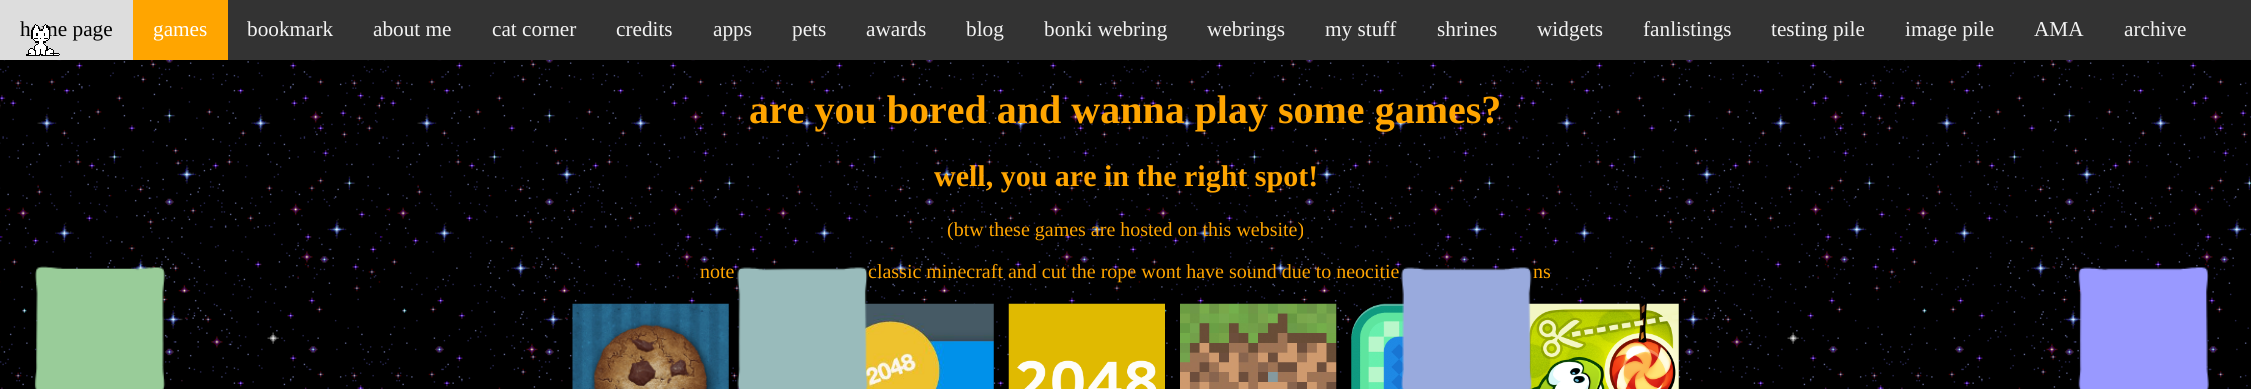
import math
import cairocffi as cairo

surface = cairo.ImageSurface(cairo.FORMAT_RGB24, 2251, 389)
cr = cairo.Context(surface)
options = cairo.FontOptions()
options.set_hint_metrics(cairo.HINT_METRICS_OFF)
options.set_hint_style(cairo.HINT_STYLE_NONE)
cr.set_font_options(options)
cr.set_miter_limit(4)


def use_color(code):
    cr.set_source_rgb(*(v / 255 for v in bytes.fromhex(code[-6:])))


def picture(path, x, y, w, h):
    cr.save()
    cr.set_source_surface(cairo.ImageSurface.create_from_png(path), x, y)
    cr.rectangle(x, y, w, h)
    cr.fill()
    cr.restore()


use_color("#ffffff")
cr.paint()
picture("img1.png", 0, 60, 2251, 329)
use_color("#333333")
cr.rectangle(228, 0, 2023, 60)
cr.fill()
use_color("#dddddd")
cr.rectangle(0, 0, 133, 60)
cr.fill()
cr.select_font_face("Liberation Serif")
cr.set_font_size(21.25)
use_color("#000000")
cr.move_to(20, 36)
cr.show_text("home page")
use_color("#ffa500")
cr.rectangle(133, 0, 95, 60)
cr.fill()
use_color("#ffffff")
cr.move_to(153, 36)
cr.show_text("games")
use_color("#f2f2f2")
cr.move_to(247, 36)
cr.show_text("bookmark")
cr.move_to(373, 36)
cr.show_text("about me")
cr.move_to(492, 36)
cr.show_text("cat corner")
cr.move_to(616, 36)
cr.show_text("credits")
cr.move_to(713, 36)
cr.show_text("apps")
cr.move_to(792, 36)
cr.show_text("pets")
cr.move_to(866, 36)
cr.show_text("awards")
cr.move_to(966, 36)
cr.show_text("blog")
cr.move_to(1044, 36)
cr.show_text("bonki webring")
cr.move_to(1207, 36)
cr.show_text("webrings")
cr.move_to(1325, 36)
cr.show_text("my stuff")
cr.move_to(1437, 36)
cr.show_text("shrines")
cr.move_to(1537, 36)
cr.show_text("widgets")
cr.move_to(1643, 36)
cr.show_text("fanlistings")
cr.move_to(1771, 36)
cr.show_text("testing pile")
cr.move_to(1905, 36)
cr.show_text("image pile")
cr.move_to(2034, 36)
cr.show_text("AMA")
cr.move_to(2124, 36)
cr.show_text("archive")
picture("img2.png", 26, 24, 34, 32)
cr.select_font_face("Liberation Serif", cairo.FONT_SLANT_NORMAL, cairo.FONT_WEIGHT_BOLD)
cr.set_font_size(40)
use_color("#ffa500")
cr.move_to(749, 123)
cr.show_text("are you bored and wanna play some games?")
cr.set_font_size(30)
cr.move_to(934, 186)
cr.show_text("well, you are in the right spot!")
cr.select_font_face("Liberation Serif")
cr.set_font_size(20)
cr.move_to(947, 236)
cr.show_text("(btw these games are hosted on this website)")
cr.move_to(700, 278)
cr.show_text("note")
cr.move_to(868, 278)
cr.show_text("classic minecraft and cut the rope wont have sound due to neocitie")
cr.move_to(1533, 278)
cr.show_text("ns")
picture("img4.png", 572, 303, 157, 86)
picture("img5.png", 864, 303, 130, 86)
picture("img6.png", 1008, 303, 157, 86)
picture("img7.png", 1180, 303, 157, 86)
picture("img8.png", 1351, 303, 53, 86)
picture("img9.png", 1528, 303, 151, 86)
picture("img3.png", 34, 266, 2175, 123)
surface.write_to_png("result.png")
